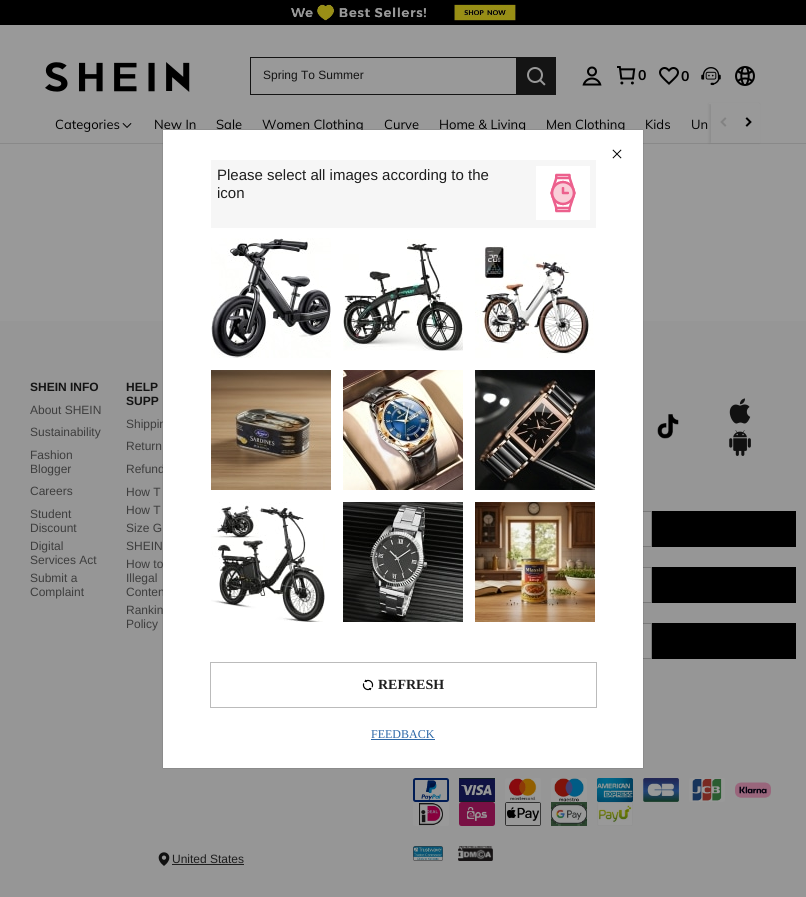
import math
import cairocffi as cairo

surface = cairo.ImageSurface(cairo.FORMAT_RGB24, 806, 897)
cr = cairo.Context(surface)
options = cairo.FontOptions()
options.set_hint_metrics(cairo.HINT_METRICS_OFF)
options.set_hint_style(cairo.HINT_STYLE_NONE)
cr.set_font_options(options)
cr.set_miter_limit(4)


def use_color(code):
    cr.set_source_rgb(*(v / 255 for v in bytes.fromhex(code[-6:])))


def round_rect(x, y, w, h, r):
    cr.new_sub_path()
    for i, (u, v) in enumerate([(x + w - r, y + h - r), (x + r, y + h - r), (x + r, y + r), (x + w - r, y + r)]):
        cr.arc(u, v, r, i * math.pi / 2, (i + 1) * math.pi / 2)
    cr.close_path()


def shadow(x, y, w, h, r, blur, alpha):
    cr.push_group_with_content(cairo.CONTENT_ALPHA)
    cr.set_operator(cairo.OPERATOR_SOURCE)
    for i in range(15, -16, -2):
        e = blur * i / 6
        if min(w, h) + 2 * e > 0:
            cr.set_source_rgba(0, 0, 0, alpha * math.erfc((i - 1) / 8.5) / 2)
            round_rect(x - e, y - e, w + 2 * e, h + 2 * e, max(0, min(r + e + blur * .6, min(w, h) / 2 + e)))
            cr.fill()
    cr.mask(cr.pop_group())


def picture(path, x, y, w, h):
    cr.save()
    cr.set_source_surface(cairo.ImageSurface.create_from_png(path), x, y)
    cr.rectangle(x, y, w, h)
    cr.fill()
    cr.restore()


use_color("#999999")
cr.paint()
picture("img1.png", 0, 0, 806, 25)
use_color("#898989")
cr.rectangle(0, 143, 806, 1)
cr.fill()
use_color("#000000")
shadow(709, 104, 50, 39, 0, 1.5, 0.08)
use_color("#999999")
cr.rectangle(709, 103, 50, 1)
cr.fill()
picture("img2.png", 45, 62, 145, 30)
use_color("#141414")
cr.rectangle(250, 57, 266, 1)
cr.fill()
cr.rectangle(250, 94, 266, 1)
cr.fill()
cr.rectangle(250, 57, 1, 38)
cr.fill()
cr.select_font_face("Liberation Sans")
cr.set_font_size(12)
cr.move_to(263, 79)
cr.show_text("Spring To Summer")
cr.rectangle(516, 57, 40, 38)
cr.fill()
picture("img3.png", 527, 67, 19, 19)
picture("img4.png", 582, 66, 20, 20)
picture("img5.png", 617, 66, 19, 19)
cr.select_font_face("Muli", cairo.FONT_SLANT_NORMAL, cairo.FONT_WEIGHT_BOLD)
cr.set_font_size(14)
use_color("#000000")
cr.move_to(638, 80)
cr.show_text("0")
picture("img6.png", 659, 67, 20, 18)
cr.move_to(681, 81)
cr.show_text("0")
picture("img7.png", 701, 67, 20, 19)
picture("img8.png", 735, 66, 20, 20)
cr.select_font_face("Muli")
cr.set_font_size(13)
cr.move_to(55, 129)
cr.show_text("Categories")
picture("img9.png", 122, 123, 10, 5)
cr.move_to(154, 129)
cr.show_text("New In")
cr.move_to(216, 129)
cr.show_text("Sale")
cr.move_to(262, 129)
cr.show_text("Women Clothing")
cr.move_to(384, 129)
cr.show_text("Curve")
cr.move_to(439, 129)
cr.show_text("Home & Living")
cr.move_to(546, 129)
cr.show_text("Men Clothing")
cr.move_to(645, 129)
cr.show_text("Kids")
cr.move_to(691, 129)
cr.show_text("Un")
use_color("#999999")
cr.rectangle(711, 104, 49, 39)
cr.fill()
picture("img10.png", 720, 117, 7, 10)
picture("img11.png", 745, 117, 7, 10)
use_color("#969696")
cr.rectangle(0, 321, 806, 576)
cr.fill()
cr.select_font_face("Liberation Sans", cairo.FONT_SLANT_NORMAL, cairo.FONT_WEIGHT_BOLD)
cr.set_font_size(12)
use_color("#141414")
cr.move_to(30, 391)
cr.show_text("SHEIN INFO")
cr.select_font_face("Liberation Sans")
use_color("#3d3d3d")
cr.move_to(30, 414)
cr.show_text("About SHEIN")
cr.move_to(30, 436)
cr.show_text("Sustainability")
cr.move_to(30, 459)
cr.show_text("Fashion")
cr.move_to(30, 473)
cr.show_text("Blogger")
cr.move_to(30, 495)
cr.show_text("Careers")
cr.move_to(30, 518)
cr.show_text("Student")
cr.move_to(30, 532)
cr.show_text("Discount")
cr.move_to(30, 550)
cr.show_text("Digital")
cr.move_to(30, 564)
cr.show_text("Services Act")
cr.move_to(30, 582)
cr.show_text("Submit a")
cr.move_to(30, 596)
cr.show_text("Complaint")
cr.select_font_face("Liberation Sans", cairo.FONT_SLANT_NORMAL, cairo.FONT_WEIGHT_BOLD)
use_color("#141414")
cr.move_to(126, 391)
cr.show_text("HELP")
cr.move_to(126, 405)
cr.show_text("SUPP")
cr.select_font_face("Liberation Sans")
use_color("#3d3d3d")
cr.move_to(126, 428)
cr.show_text("Shippin")
cr.move_to(126, 450)
cr.show_text("Return")
cr.move_to(126, 473)
cr.show_text("Refund")
cr.move_to(126, 496)
cr.show_text("How T")
cr.move_to(126, 514)
cr.show_text("How T")
cr.move_to(126, 532)
cr.show_text("Size G")
cr.move_to(126, 550)
cr.show_text("SHEIN")
cr.move_to(126, 568)
cr.show_text("How to")
cr.move_to(126, 582)
cr.show_text("Illegal")
cr.move_to(126, 596)
cr.show_text("Conten")
cr.move_to(126, 614)
cr.show_text("Rankin")
cr.move_to(126, 628)
cr.show_text("Policy")
picture("img12.png", 657, 414, 22, 25)
picture("img13.png", 729, 398, 22, 26)
picture("img14.png", 729, 430, 22, 26)
use_color("#999999")
cr.rectangle(643, 512, 8, 34)
cr.fill()
cr.rectangle(413.5, 511.5, 238, 35)
use_color("#7a7a7a")
cr.set_line_width(1)
cr.stroke()
use_color("#000000")
cr.rectangle(652, 511, 144, 36)
cr.fill()
use_color("#999999")
cr.rectangle(643, 568, 8, 34)
cr.fill()
cr.rectangle(493.5, 567.5, 158, 35)
use_color("#7a7a7a")
cr.stroke()
use_color("#000000")
cr.rectangle(652, 567, 144, 36)
cr.fill()
use_color("#999999")
cr.rectangle(643, 624, 8, 34)
cr.fill()
cr.rectangle(493.5, 623.5, 158, 35)
use_color("#7a7a7a")
cr.stroke()
use_color("#000000")
cr.rectangle(652, 623, 144, 36)
cr.fill()
picture("img15.png", 413, 778, 36, 24)
picture("img16.png", 459, 778, 36, 24)
picture("img17.png", 505, 778, 36, 24)
picture("img18.png", 551, 778, 36, 24)
picture("img19.png", 597, 778, 36, 24)
picture("img20.png", 643, 778, 36, 24)
picture("img21.png", 689, 778, 36, 24)
picture("img22.png", 735, 782, 36, 16)
picture("img23.png", 413, 802, 36, 24)
picture("img24.png", 459, 802, 36, 24)
picture("img25.png", 505, 802, 36, 24)
picture("img26.png", 551, 802, 36, 24)
picture("img27.png", 597, 802, 36, 24)
picture("img28.png", 158, 852, 12, 14)
use_color("#1e1e1e")
cr.move_to(172, 863)
cr.show_text("United States")
cr.rectangle(172, 864, 72, 1)
cr.fill()
picture("img29.png", 413, 846, 30, 15)
picture("img30.png", 458, 846, 35, 15)
use_color("#000000")
shadow(163, 130, 480, 638, 0, 0.5, 0.3)
use_color("#ffffff")
cr.rectangle(163, 130, 480, 638)
cr.fill()
picture("img31.png", 612, 149, 10, 10)
use_color("#f6f6f6")
cr.rectangle(211, 160, 385, 68)
cr.fill()
cr.set_font_size(15)
use_color("#1e1e1e")
cr.move_to(217, 180)
cr.show_text("Please select all images according to the")
cr.move_to(217, 198)
cr.show_text("icon")
use_color("#ffffff")
cr.rectangle(536, 166, 54, 54)
cr.fill()
picture("img32.png", 550, 173, 26, 40)
picture("img33.png", 211, 238, 120, 120)
picture("img34.png", 343, 239, 120, 112)
picture("img35.png", 475, 246, 119, 112)
picture("img36.png", 211, 370, 120, 120)
picture("img37.png", 343, 370, 120, 120)
picture("img38.png", 475, 370, 120, 120)
picture("img39.png", 211, 502, 114, 120)
picture("img40.png", 343, 502, 120, 120)
picture("img41.png", 475, 502, 120, 120)
cr.rectangle(210.5, 662.5, 386, 45)
use_color("#bbbbbb")
cr.stroke()
picture("img42.png", 362, 679, 12, 12)
cr.select_font_face("Liberation Serif", cairo.FONT_SLANT_NORMAL, cairo.FONT_WEIGHT_BOLD)
cr.set_font_size(14)
use_color("#1e1e1e")
cr.move_to(378, 689)
cr.show_text("REFRESH")
cr.select_font_face("Liberation Serif")
cr.set_font_size(12)
use_color("#2d68a8")
cr.move_to(371, 738)
cr.show_text("FEEDBACK")
cr.rectangle(371, 739, 64, 1)
cr.fill()
surface.write_to_png("result.png")
